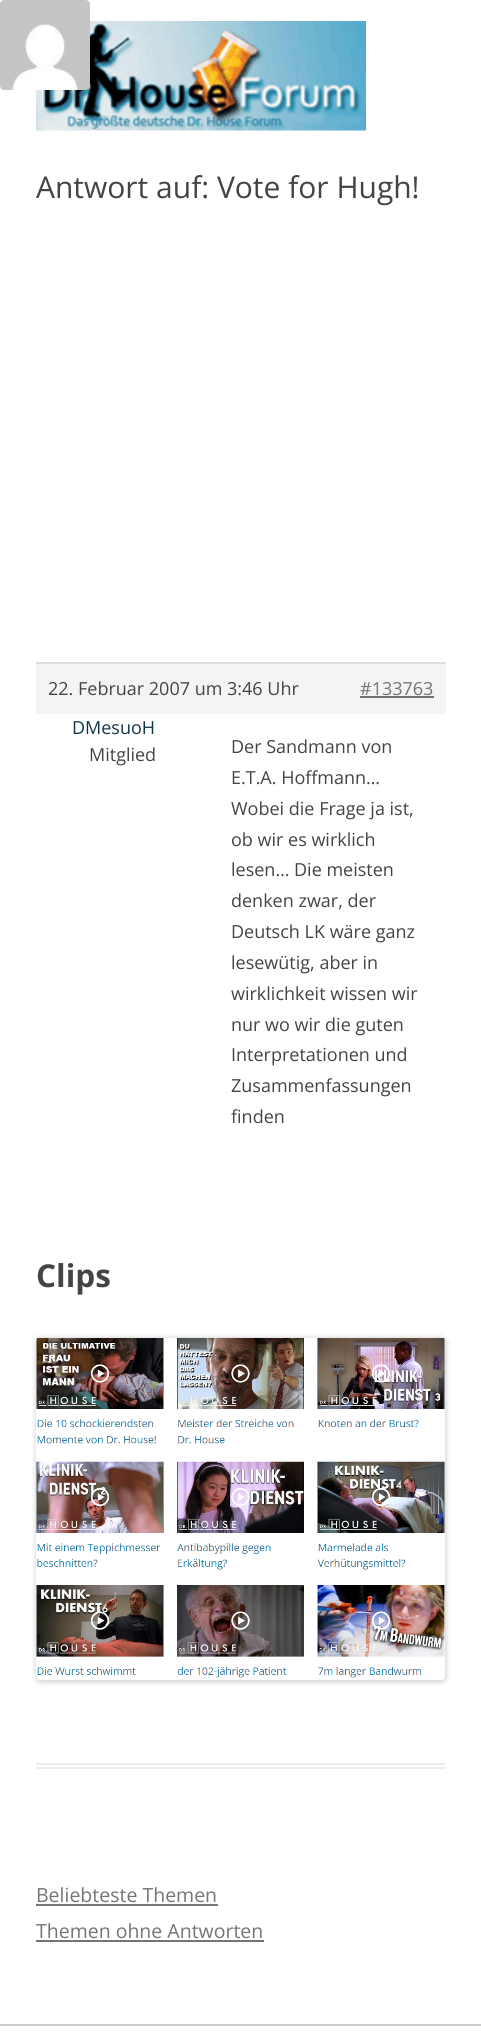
import math
import cairocffi as cairo

surface = cairo.ImageSurface(cairo.FORMAT_RGB24, 481, 2042)
cr = cairo.Context(surface)
options = cairo.FontOptions()
options.set_hint_metrics(cairo.HINT_METRICS_OFF)
options.set_hint_style(cairo.HINT_STYLE_NONE)
cr.set_font_options(options)
cr.set_miter_limit(4)


def use_color(code):
    cr.set_source_rgb(*(v / 255 for v in bytes.fromhex(code[-6:])))


def round_rect(x, y, w, h, r):
    cr.new_sub_path()
    for i, (u, v) in enumerate([(x + w - r, y + h - r), (x + r, y + h - r), (x + r, y + r), (x + w - r, y + r)]):
        cr.arc(u, v, r, i * math.pi / 2, (i + 1) * math.pi / 2)
    cr.close_path()


def shadow(x, y, w, h, r, blur, alpha):
    cr.push_group_with_content(cairo.CONTENT_ALPHA)
    cr.set_operator(cairo.OPERATOR_SOURCE)
    for i in range(15, -16, -2):
        e = blur * i / 6
        if min(w, h) + 2 * e > 0:
            cr.set_source_rgba(0, 0, 0, alpha * math.erfc((i - 1) / 8.5) / 2)
            round_rect(x - e, y - e, w + 2 * e, h + 2 * e, max(0, min(r + e + blur * .6, min(w, h) / 2 + e)))
            cr.fill()
    cr.mask(cr.pop_group())


def picture(path, x, y, w, h):
    cr.save()
    cr.set_source_surface(cairo.ImageSurface.create_from_png(path), x, y)
    cr.rectangle(x, y, w, h)
    cr.fill()
    cr.restore()


use_color("#ffffff")
cr.paint()
picture("img1.png", 36, 21, 330, 110)
use_color("#ededed")
cr.rectangle(36, 1763, 410, 2)
cr.fill()
cr.rectangle(36, 1767, 410, 2)
cr.fill()
cr.select_font_face("Open Sans")
cr.set_font_size(30)
use_color("#444444")
cr.move_to(36, 198)
cr.show_text("Antwort auf: Vote for Hugh!")
use_color("#f4f4f4")
cr.rectangle(36, 664, 410, 50)
cr.fill()
use_color("#dddddd")
cr.rectangle(36, 662, 410, 2)
cr.fill()
cr.set_font_size(18)
use_color("#444444")
cr.move_to(48, 695)
cr.show_text("22. Februar 2007 um 3:46 Uhr")
use_color("#757575")
cr.move_to(360, 695)
cr.show_text("#133763")
use_color("#707070")
cr.rectangle(360, 696, 74, 2)
cr.fill()
picture("img2.png", 0, 0, 90, 90)
use_color("#0f3647")
cr.move_to(72, 734)
cr.show_text("DMesuoH")
use_color("#444444")
cr.move_to(89, 761)
cr.show_text("Mitglied")
cr.move_to(231, 753)
cr.show_text("Der Sandmann von")
cr.move_to(231, 784)
cr.show_text("E.T.A. Hoffmann…")
cr.move_to(231, 815)
cr.show_text("Wobei die Frage ja ist,")
cr.move_to(231, 846)
cr.show_text("ob wir es wirklich")
cr.move_to(231, 876)
cr.show_text("lesen… Die meisten")
cr.move_to(231, 907)
cr.show_text("denken zwar, der")
cr.move_to(231, 938)
cr.show_text("Deutsch LK wäre ganz")
cr.move_to(231, 969)
cr.show_text("lesewütig, aber in")
cr.move_to(231, 1000)
cr.show_text("wirklichkeit wissen wir")
cr.move_to(231, 1031)
cr.show_text("nur wo wir die guten")
cr.move_to(231, 1061)
cr.show_text("Interpretationen und")
cr.move_to(231, 1092)
cr.show_text("Zusammenfassungen")
cr.move_to(231, 1123)
cr.show_text("finden")
cr.select_font_face("Open Sans", cairo.FONT_SLANT_NORMAL, cairo.FONT_WEIGHT_BOLD)
cr.set_font_size(31.5)
cr.move_to(36, 1287)
cr.show_text("Clips")
use_color("#000000")
shadow(36, 1338, 410, 344, 5, 3, 0.2)
picture("img3.png", 36, 1338, 409, 342)
cr.select_font_face("Open Sans")
cr.set_font_size(19.5)
use_color("#757575")
cr.move_to(36, 1902)
cr.show_text("Beliebteste Themen")
cr.rectangle(36, 1904, 182, 2)
cr.fill()
cr.move_to(36, 1938)
cr.show_text("Themen ohne Antworten")
cr.rectangle(36, 1940, 228, 2)
cr.fill()
use_color("#cccccc")
cr.rectangle(0, 2024, 481, 2)
cr.fill()
surface.write_to_png("result.png")
